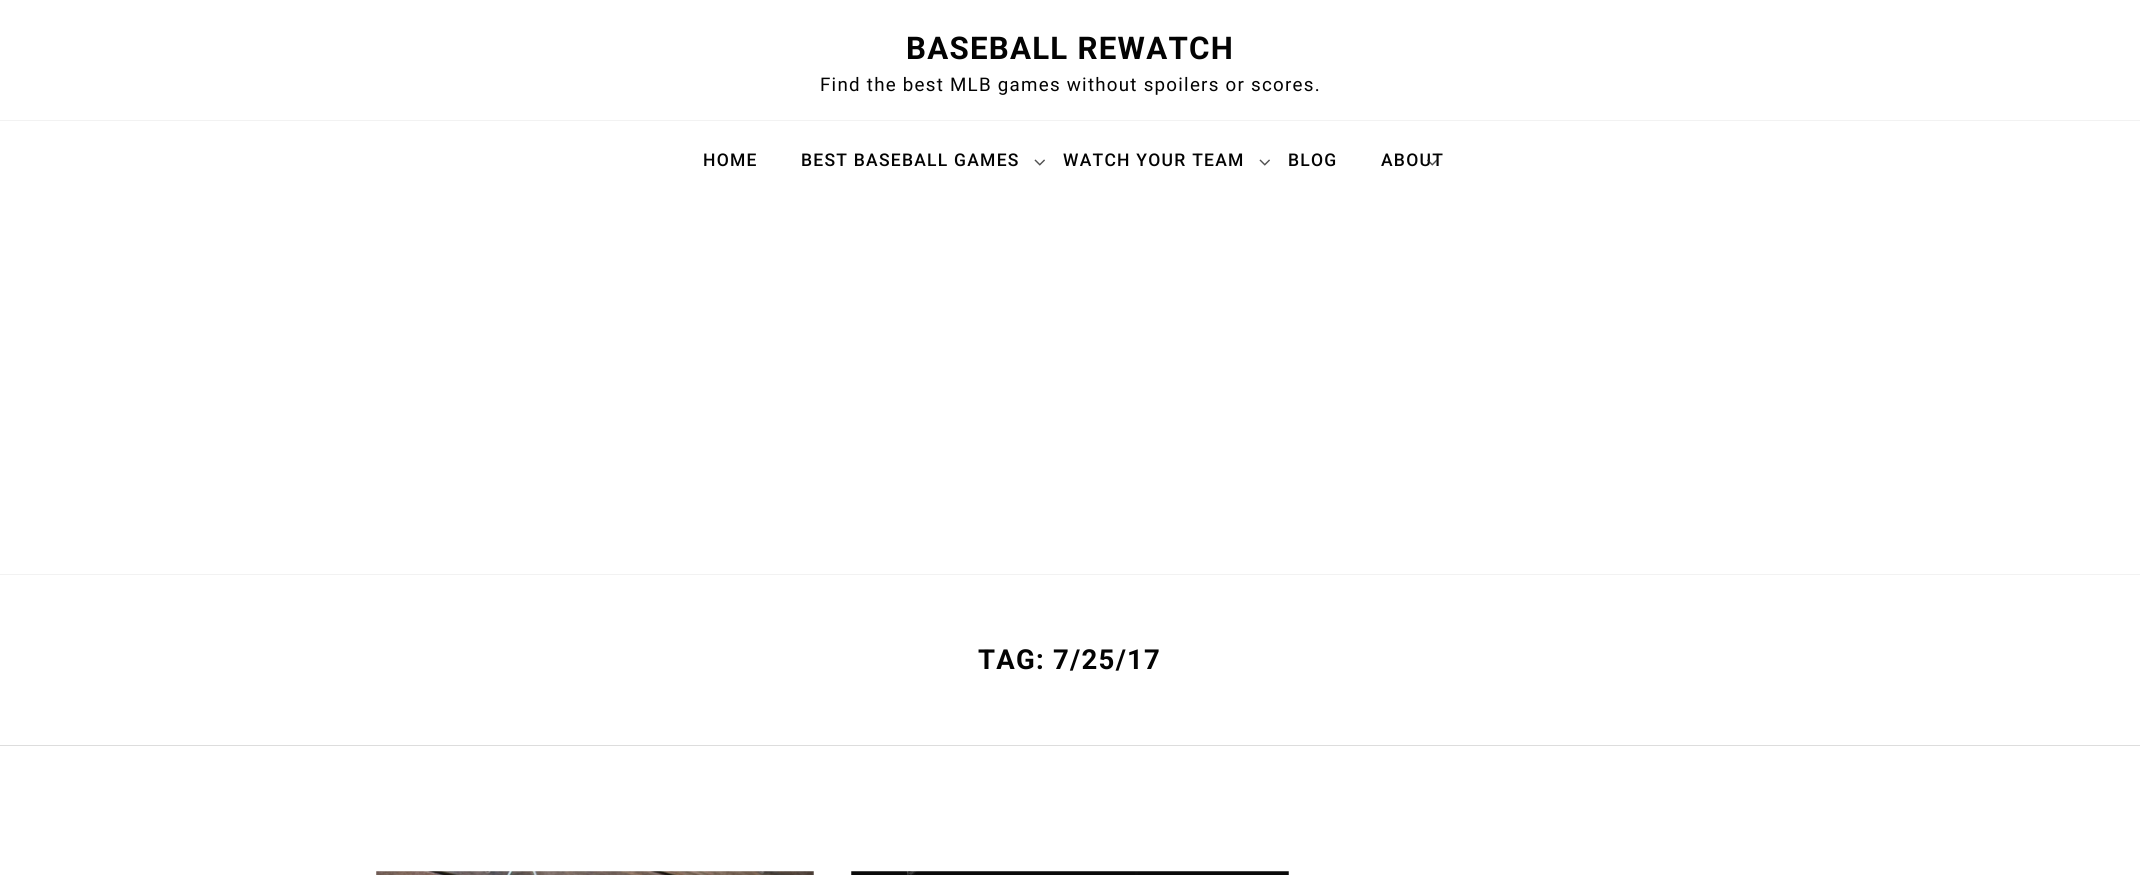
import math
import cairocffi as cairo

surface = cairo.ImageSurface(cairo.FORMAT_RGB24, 2140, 875)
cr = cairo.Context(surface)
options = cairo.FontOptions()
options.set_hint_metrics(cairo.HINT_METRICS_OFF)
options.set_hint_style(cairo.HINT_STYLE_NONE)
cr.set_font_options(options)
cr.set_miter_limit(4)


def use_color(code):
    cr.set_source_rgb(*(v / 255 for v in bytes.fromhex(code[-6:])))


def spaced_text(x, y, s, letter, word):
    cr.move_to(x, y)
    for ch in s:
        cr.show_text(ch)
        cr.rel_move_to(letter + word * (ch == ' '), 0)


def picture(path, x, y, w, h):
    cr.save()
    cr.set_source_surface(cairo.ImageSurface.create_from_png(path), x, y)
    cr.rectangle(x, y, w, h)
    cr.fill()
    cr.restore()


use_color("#ffffff")
cr.paint()
cr.select_font_face("Roboto", cairo.FONT_SLANT_NORMAL, cairo.FONT_WEIGHT_BOLD)
cr.set_font_size(31.25)
use_color("#030303")
spaced_text(906, 59, "BASEBALL REWATCH", 1.25, 0)
cr.select_font_face("Roboto")
cr.set_font_size(18.75)
spaced_text(820, 91, "Find the best MLB games without spoilers or scores.", 1.25, 0)
use_color("#f2f2f2")
cr.rectangle(0, 120, 2140, 1)
cr.fill()
cr.rectangle(0, 574, 2140, 1)
cr.fill()
cr.select_font_face("Roboto Medium")
cr.set_font_size(17.5)
use_color("#030303")
spaced_text(703, 166, "HOME", 1.25, 0)
spaced_text(801, 166, "BEST BASEBALL GAMES", 1.25, 0)
picture("img1.png", 1034, 159, 11, 7)
spaced_text(1063, 166, "WATCH YOUR TEAM", 1.25, 0)
picture("img1.png", 1259, 159, 11, 7)
spaced_text(1288, 166, "BLOG", 1.25, 0)
spaced_text(1381, 166, "ABOUT", 1.25, 0)
picture("img2.png", 1427, 159, 11, 7)
use_color("#dddddd")
cr.rectangle(0, 745, 2140, 1)
cr.fill()
cr.select_font_face("Roboto", cairo.FONT_SLANT_NORMAL, cairo.FONT_WEIGHT_BOLD)
cr.set_font_size(27.5)
use_color("#030303")
spaced_text(978, 669, "TAG: 7/25/17", 1.25, 0)
picture("img3.png", 376, 871, 438, 4)
picture("img4.png", 851, 871, 438, 4)
surface.write_to_png("result.png")
